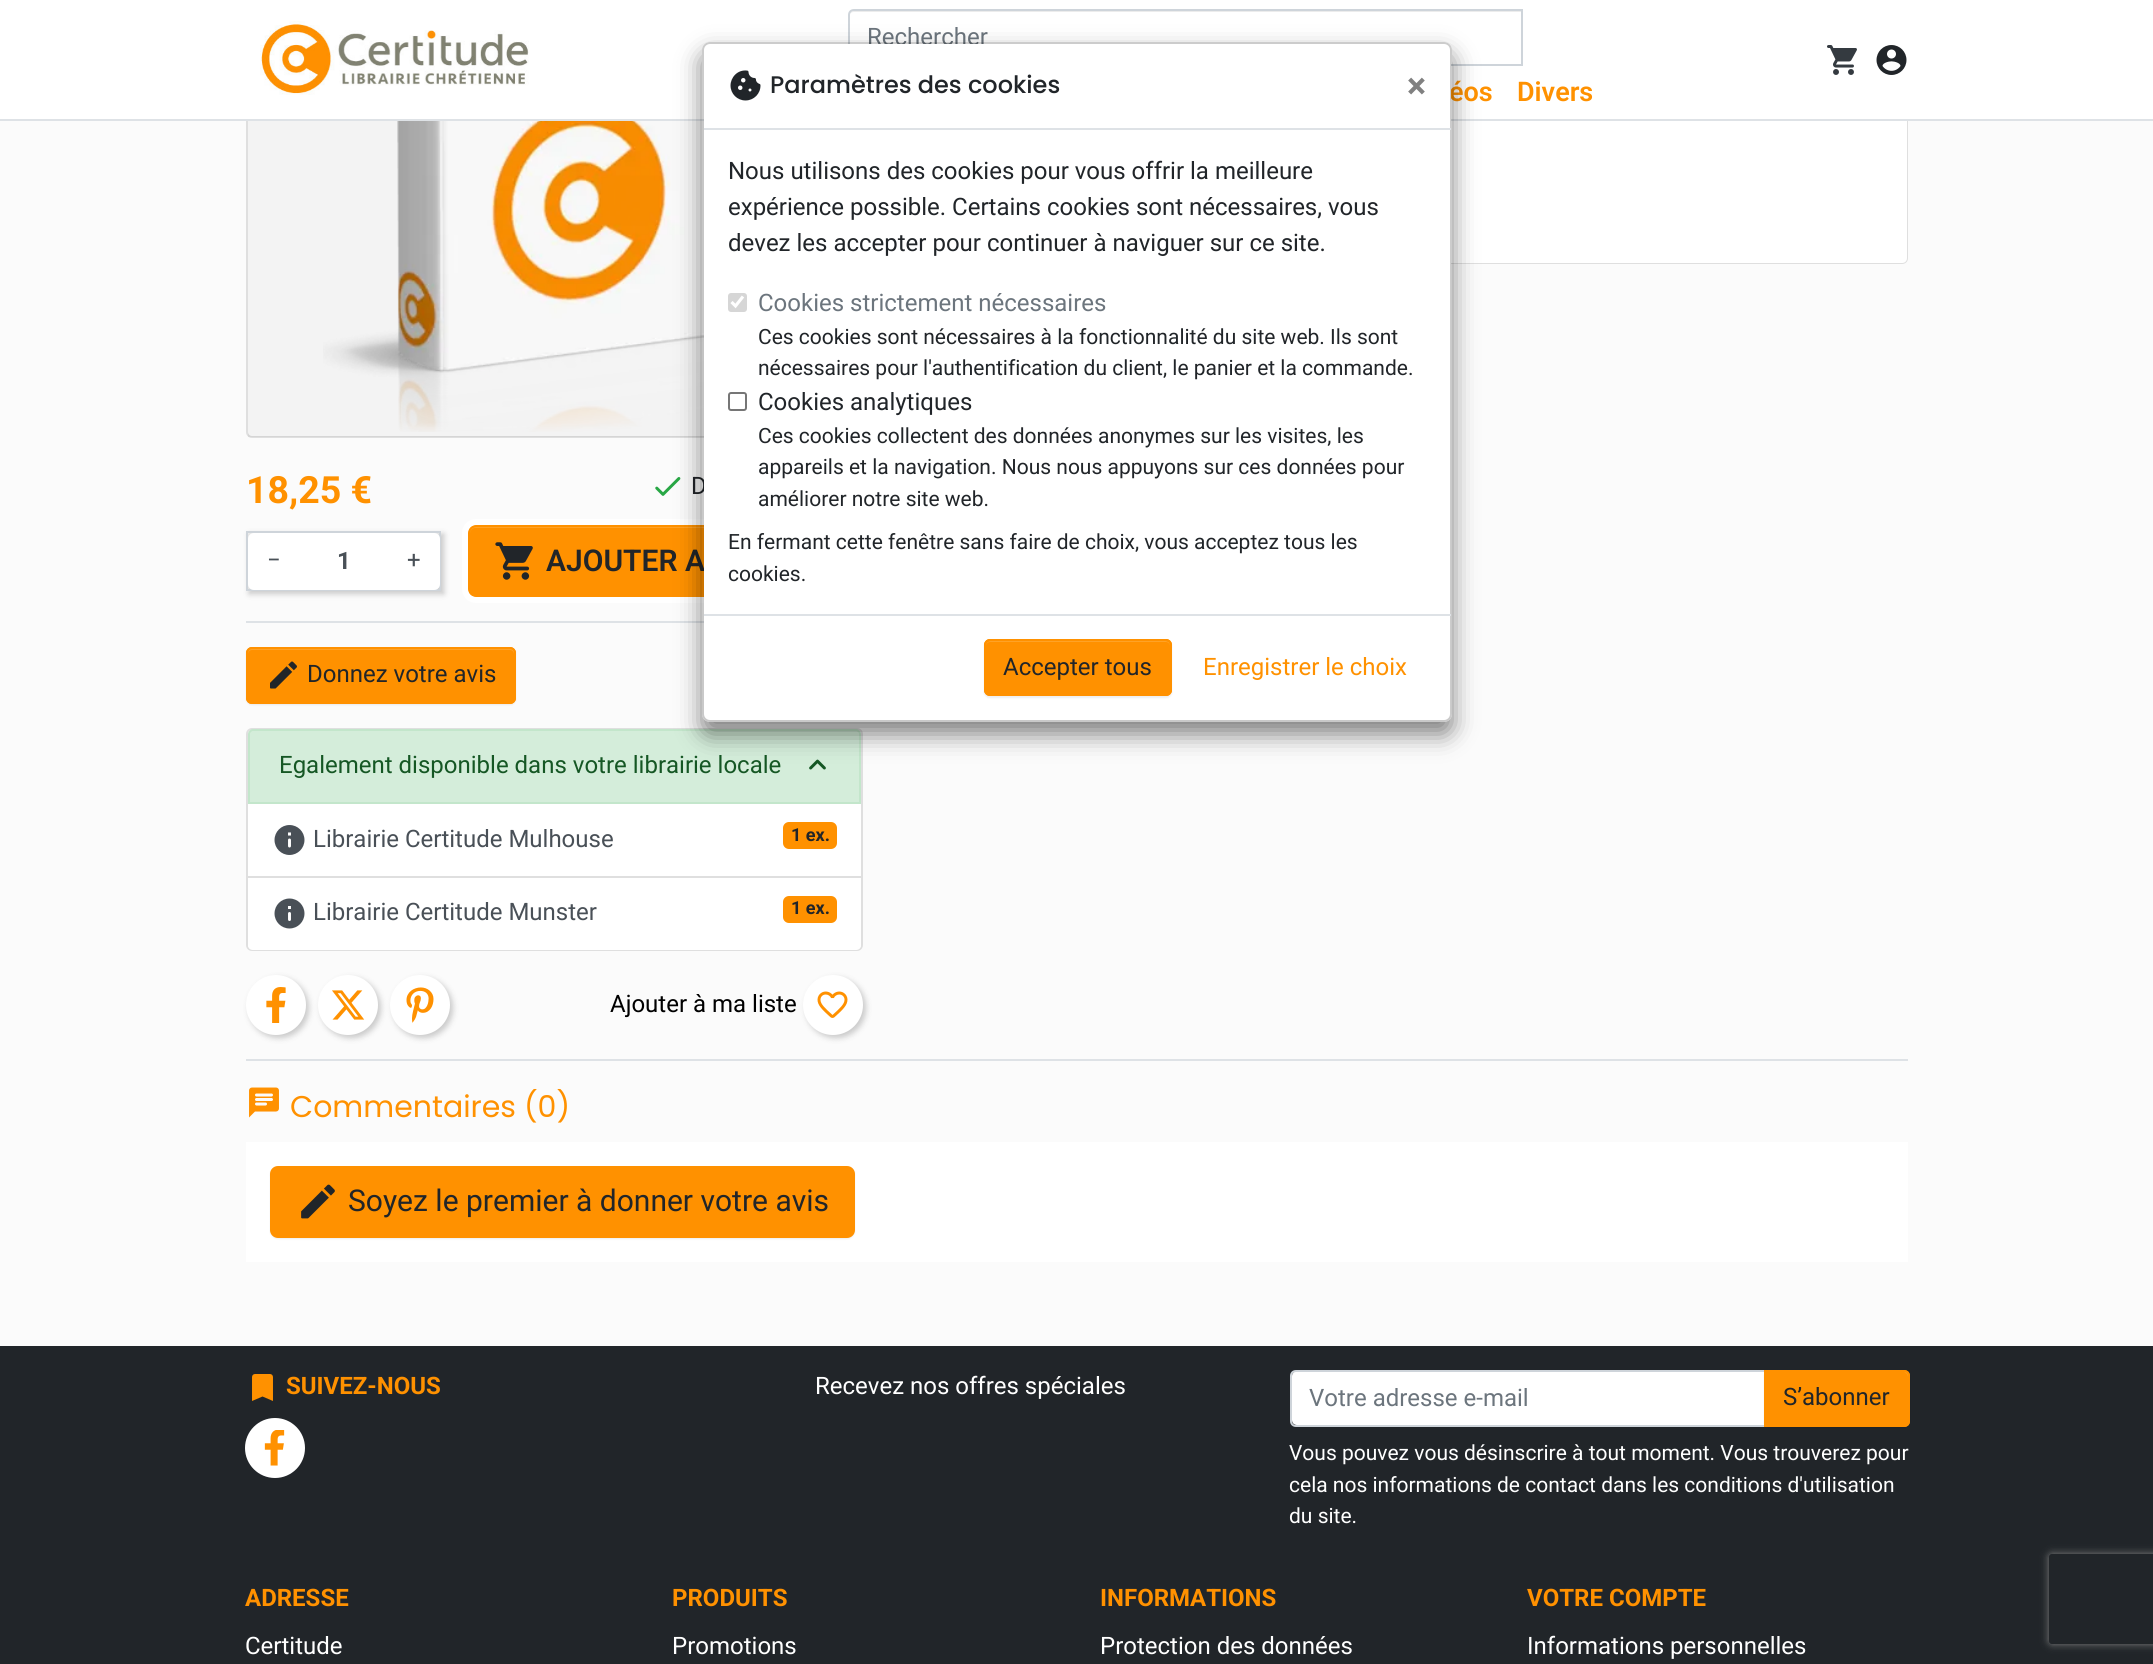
import math
import cairocffi as cairo

surface = cairo.ImageSurface(cairo.FORMAT_RGB24, 2153, 1664)
cr = cairo.Context(surface)
options = cairo.FontOptions()
options.set_hint_metrics(cairo.HINT_METRICS_OFF)
options.set_hint_style(cairo.HINT_STYLE_NONE)
cr.set_font_options(options)
cr.set_miter_limit(4)


def use_color(code):
    cr.set_source_rgb(*(v / 255 for v in bytes.fromhex(code[-6:])))


def round_rect(x, y, w, h, r):
    cr.new_sub_path()
    for i, (u, v) in enumerate([(x + w - r, y + h - r), (x + r, y + h - r), (x + r, y + r), (x + w - r, y + r)]):
        cr.arc(u, v, r, i * math.pi / 2, (i + 1) * math.pi / 2)
    cr.close_path()


def shadow(x, y, w, h, r, blur, alpha):
    cr.push_group_with_content(cairo.CONTENT_ALPHA)
    cr.set_operator(cairo.OPERATOR_SOURCE)
    for i in range(15, -16, -2):
        e = blur * i / 6
        if min(w, h) + 2 * e > 0:
            cr.set_source_rgba(0, 0, 0, alpha * math.erfc((i - 1) / 8.5) / 2)
            round_rect(x - e, y - e, w + 2 * e, h + 2 * e, max(0, min(r + e + blur * .6, min(w, h) / 2 + e)))
            cr.fill()
    cr.mask(cr.pop_group())


def picture(path, x, y, w, h):
    cr.save()
    cr.set_source_surface(cairo.ImageSurface.create_from_png(path), x, y)
    cr.rectangle(x, y, w, h)
    cr.fill()
    cr.restore()


use_color("#fbfbfb")
cr.paint()
cr.new_path()
cr.move_to(912, -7)
cr.line_to(1907, -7)
cr.line_to(1907, 258)
cr.curve_to(1907, 261, 1905, 263, 1902, 263)
cr.line_to(917, 263)
cr.curve_to(914, 263, 912, 261, 912, 258)
cr.close_path()
use_color("#dfdfdf")
cr.stroke()
use_color("#ffffff")
cr.new_path()
cr.move_to(912, -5)
cr.line_to(1907, -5)
cr.line_to(1907, 258)
cr.curve_to(1907, 261, 1905, 263, 1902, 263)
cr.line_to(917, 263)
cr.curve_to(914, 263, 912, 261, 912, 258)
cr.close_path()
cr.fill()
round_rect(247, -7, 615, 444, 5)
cr.fill_preserve()
use_color("#dfdfdf")
cr.stroke()
use_color("#ffffff")
cr.rectangle(0, 0, 2153, 119)
cr.fill()
use_color("#dee2e6")
cr.rectangle(0, 119, 2153, 2)
cr.fill()
picture("img1.png", 260, 21, 269, 74)
use_color("#ececec")
cr.new_path()
cr.move_to(854, 12)
cr.line_to(1521, 12)
cr.line_to(1521, 11)
cr.line_to(854, 11)
cr.curve_to(851, 11, 849, 13, 849, 16)
cr.curve_to(849, 14, 851, 12, 854, 12)
cr.close_path()
cr.fill()
cr.new_path()
cr.move_to(854, 10)
cr.line_to(1522, 10)
cr.line_to(1522, 65)
cr.line_to(854, 65)
cr.curve_to(851, 65, 849, 63, 849, 60)
cr.line_to(849, 15)
cr.curve_to(849, 12, 851, 10, 854, 10)
cr.close_path()
use_color("#ced4da")
cr.stroke()
cr.select_font_face("Roboto")
cr.set_font_size(24)
use_color("#6c757d")
cr.move_to(867, 45)
cr.show_text("Rechercher")
cr.select_font_face("Roboto SemiBold")
cr.set_font_size(27)
use_color("#ff9100")
cr.move_to(1449, 101)
cr.show_text("éos")
cr.move_to(1517, 101)
cr.show_text("Divers")
picture("img2.png", 1827, 45, 30, 30)
picture("img3.png", 1876, 45, 31, 30)
use_color("#dee2e6")
cr.rectangle(246, 1059, 1662, 2)
cr.fill()
cr.set_source_rgba(0, 0, 0, 0.05)
cr.rectangle(248, 121, 456, 316)
cr.fill()
picture("img4.png", 323, 121, 381, 311)
cr.select_font_face("Roboto", cairo.FONT_SLANT_NORMAL, cairo.FONT_WEIGHT_BOLD)
cr.set_font_size(37.5)
use_color("#ff9100")
cr.move_to(246, 503)
cr.show_text("18,25 €")
picture("img5.png", 655, 477, 26, 19)
cr.select_font_face("Roboto")
cr.set_font_size(24)
use_color("#212529")
cr.move_to(691, 494)
cr.show_text("D")
use_color("#dee2e6")
cr.rectangle(246, 621, 458, 2)
cr.fill()
use_color("#000000")
shadow(249, 534, 195, 60, 0, 3, 0.2)
cr.rectangle(247, 532, 193, 58)
use_color("#ced4da")
cr.stroke()
use_color("#ffffff")
cr.new_path()
cr.move_to(254, 533)
cr.line_to(300, 533)
cr.line_to(300, 590)
cr.line_to(254, 590)
cr.curve_to(250.5, 590, 248, 587.5, 248, 584)
cr.line_to(248, 539)
cr.curve_to(248, 535.5, 250.5, 533, 254, 533)
cr.close_path()
cr.fill()
use_color("#495057")
cr.move_to(267, 568)
cr.show_text("−")
use_color("#ffffff")
cr.rectangle(300, 533, 87, 57)
cr.fill()
cr.select_font_face("Roboto", cairo.FONT_SLANT_NORMAL, cairo.FONT_WEIGHT_BOLD)
use_color("#495057")
cr.move_to(337, 569)
cr.show_text("1")
use_color("#ffffff")
cr.new_path()
cr.move_to(387, 533)
cr.line_to(434, 533)
cr.curve_to(437.5, 533, 440, 535.5, 440, 539)
cr.line_to(440, 584)
cr.curve_to(440, 587.5, 437.5, 590, 434, 590)
cr.line_to(387, 590)
cr.close_path()
cr.fill()
cr.select_font_face("Roboto")
use_color("#495057")
cr.move_to(407, 568)
cr.show_text("+")
use_color("#000000")
shadow(468, 527, 395, 72, 8, 1, 0.07)
use_color("#ff9100")
round_rect(468, 525, 395, 72, 8)
cr.fill()
use_color("#ffa226")
cr.new_path()
cr.move_to(475, 528)
cr.line_to(855, 528)
cr.curve_to(858, 528, 861, 531, 861, 534)
cr.curve_to(861, 530, 859, 527, 855, 527)
cr.line_to(476, 527)
cr.curve_to(472, 527, 470, 530, 470, 534)
cr.curve_to(470, 531, 472, 528, 475, 528)
cr.close_path()
cr.fill()
round_rect(469, 526, 393, 70, 7)
use_color("#ff9100")
cr.stroke()
round_rect(465, 522, 401, 78, 11)
use_color("#ffffff")
cr.set_line_width(6)
cr.stroke()
picture("img6.png", 495, 542, 38, 38)
cr.select_font_face("Roboto SemiBold")
cr.set_font_size(30)
use_color("#212529")
cr.move_to(546, 571)
cr.show_text("AJOUTER A")
use_color("#000000")
shadow(246, 648, 270, 57, 6, 1, 0.07)
use_color("#ff9100")
round_rect(246, 647, 270, 57, 6)
cr.fill()
use_color("#ffa226")
cr.new_path()
cr.move_to(252, 650)
cr.line_to(510, 650)
cr.curve_to(512, 650, 514, 652, 514, 654)
cr.line_to(514, 700)
cr.curve_to(515, 699, 515, 698, 515, 697)
cr.line_to(515, 653)
cr.curve_to(515, 650, 513, 648, 510, 648)
cr.line_to(253, 648)
cr.curve_to(250, 648, 248, 650, 248, 653)
cr.line_to(248, 654)
cr.curve_to(248, 652, 250, 650, 252, 650)
cr.close_path()
cr.fill()
round_rect(247, 648, 268, 55, 5)
use_color("#ff9100")
cr.set_line_width(2)
cr.stroke()
picture("img7.png", 270, 661, 27, 28)
cr.select_font_face("Roboto")
cr.set_font_size(24)
use_color("#212529")
cr.move_to(307, 682)
cr.show_text("Donnez votre avis")
use_color("#ffffff")
round_rect(247, 729, 615, 221, 5)
cr.fill_preserve()
use_color("#dfdfdf")
cr.stroke()
use_color("#d4edda")
cr.new_path()
cr.move_to(253, 730)
cr.line_to(856, 730)
cr.curve_to(858, 730, 860, 732, 860, 734)
cr.line_to(860, 803)
cr.line_to(249, 803)
cr.line_to(249, 734)
cr.curve_to(249, 732, 251, 730, 253, 730)
cr.close_path()
cr.fill_preserve()
use_color("#c3e6cb")
cr.stroke()
use_color("#155724")
cr.move_to(279, 773)
cr.show_text("Egalement disponible dans votre librairie locale")
picture("img8.png", 809, 759, 17, 11)
use_color("#dfdfdf")
cr.rectangle(248, 876, 613, 2)
cr.fill()
picture("img9.png", 274, 825, 31, 30)
use_color("#495057")
cr.move_to(313, 847)
cr.show_text("Librairie Certitude Mulhouse")
use_color("#ff9100")
round_rect(783, 822, 54, 27, 6)
cr.fill()
cr.select_font_face("Roboto", cairo.FONT_SLANT_NORMAL, cairo.FONT_WEIGHT_BOLD)
cr.set_font_size(18)
use_color("#212529")
cr.move_to(791, 841)
cr.show_text("1 ex.")
use_color("#ffffff")
cr.new_path()
cr.move_to(248, 878)
cr.line_to(861, 878)
cr.line_to(861, 945)
cr.curve_to(861, 948, 859, 950, 856, 950)
cr.line_to(253, 950)
cr.curve_to(250, 950, 248, 948, 248, 945)
cr.close_path()
cr.fill()
picture("img10.png", 274, 898, 31, 31)
cr.select_font_face("Roboto")
cr.set_font_size(24)
use_color("#495057")
cr.move_to(313, 920)
cr.show_text("Librairie Certitude Munster")
use_color("#ff9100")
round_rect(783, 896, 54, 27, 6)
cr.fill()
cr.select_font_face("Roboto", cairo.FONT_SLANT_NORMAL, cairo.FONT_WEIGHT_BOLD)
cr.set_font_size(18)
use_color("#212529")
cr.move_to(791, 914)
cr.show_text("1 ex.")
use_color("#000000")
shadow(249, 978, 60, 60, 30, 3, 0.2)
use_color("#ffffff")
cr.arc(276, 1005, 30, 0, 2 * math.pi)
cr.fill()
picture("img11.png", 266, 987, 20, 36)
use_color("#000000")
shadow(321, 978, 60, 60, 30, 3, 0.2)
use_color("#ffffff")
cr.arc(348, 1005, 30, 0, 2 * math.pi)
cr.fill()
picture("img12.png", 332, 990, 33, 30)
use_color("#000000")
shadow(393, 978, 60, 60, 30, 3, 0.2)
use_color("#ffffff")
cr.arc(420, 1005, 30, 0, 2 * math.pi)
cr.fill()
picture("img13.png", 406, 987, 28, 36)
cr.select_font_face("Roboto")
cr.set_font_size(24)
use_color("#000000")
cr.move_to(610, 1012)
cr.show_text("Ajouter à ma liste")
use_color("#000000")
shadow(806, 978, 60, 60, 30, 3, 0.2)
use_color("#ffffff")
cr.arc(833, 1005, 30, 0, 2 * math.pi)
cr.fill()
picture("img14.png", 817, 991, 31, 27)
picture("img15.png", 249, 1087, 30, 31)
cr.select_font_face("Poppins")
cr.set_font_size(30)
use_color("#ff9100")
cr.move_to(290, 1117)
cr.show_text("Commentaires (0)")
use_color("#ffffff")
cr.rectangle(246, 1142, 1662, 120)
cr.fill()
use_color("#000000")
shadow(270, 1167, 585, 72, 8, 1, 0.07)
use_color("#ff9100")
round_rect(271, 1167, 583, 70, 7)
cr.fill_preserve()
cr.stroke()
picture("img16.png", 301, 1184, 34, 35)
cr.select_font_face("Roboto")
use_color("#212529")
cr.move_to(348, 1211)
cr.show_text("Soyez le premier à donner votre avis")
cr.rectangle(0, 1346, 2153, 318)
cr.fill()
picture("img17.png", 252, 1374, 21, 27)
cr.select_font_face("Roboto", cairo.FONT_SLANT_NORMAL, cairo.FONT_WEIGHT_BOLD)
cr.set_font_size(24)
use_color("#ff9100")
cr.move_to(286, 1394)
cr.show_text("SUIVEZ-NOUS")
use_color("#ffffff")
cr.new_path()
cr.arc(275, 1448, 30, 0, 2 * math.pi)
cr.fill()
picture("img18.png", 264, 1430, 21, 36)
cr.select_font_face("Roboto")
cr.move_to(815, 1394)
cr.show_text("Recevez nos offres spéciales")
cr.new_path()
cr.move_to(1297, 1371)
cr.line_to(1764, 1371)
cr.line_to(1764, 1425)
cr.line_to(1297, 1425)
cr.curve_to(1294, 1425, 1292, 1423, 1292, 1420)
cr.line_to(1292, 1376)
cr.curve_to(1292, 1373, 1294, 1371, 1297, 1371)
cr.close_path()
cr.fill()
cr.set_source_rgba(0, 0, 0, 0.07)
cr.new_path()
cr.move_to(1296, 1372)
cr.line_to(1764, 1372)
cr.line_to(1764, 1371)
cr.line_to(1297, 1371)
cr.curve_to(1294, 1371, 1292, 1373, 1292, 1376)
cr.line_to(1292, 1377)
cr.curve_to(1292, 1375, 1294, 1372, 1296, 1372)
cr.close_path()
cr.fill()
cr.new_path()
cr.move_to(1296, 1371)
cr.line_to(1765, 1371)
cr.line_to(1765, 1426)
cr.line_to(1296, 1426)
cr.curve_to(1293, 1426, 1291, 1424, 1291, 1421)
cr.line_to(1291, 1376)
cr.curve_to(1291, 1373, 1293, 1371, 1296, 1371)
cr.close_path()
use_color("#ced4da")
cr.stroke()
use_color("#6c757d")
cr.move_to(1309, 1406)
cr.show_text("Votre adresse e-mail")
use_color("#000000")
shadow(1764, 1371, 146, 57, 6, 1, 0.07)
use_color("#ff9100")
cr.new_path()
cr.move_to(1764, 1370)
cr.line_to(1904, 1370)
cr.curve_to(1907.5, 1370, 1910, 1372.5, 1910, 1376)
cr.line_to(1910, 1421)
cr.curve_to(1910, 1424.5, 1907.5, 1427, 1904, 1427)
cr.line_to(1764, 1427)
cr.close_path()
cr.fill()
use_color("#ffa226")
cr.new_path()
cr.move_to(1766, 1372)
cr.line_to(1904, 1372)
cr.curve_to(1906, 1372, 1908, 1375, 1908, 1377)
cr.line_to(1908, 1376)
cr.curve_to(1908, 1373, 1906, 1371, 1903, 1371)
cr.line_to(1766, 1371)
cr.close_path()
cr.fill()
cr.new_path()
cr.move_to(1765, 1371)
cr.line_to(1904, 1371)
cr.curve_to(1907, 1371, 1909, 1373, 1909, 1376)
cr.line_to(1909, 1421)
cr.curve_to(1909, 1424, 1907, 1426, 1904, 1426)
cr.line_to(1765, 1426)
cr.close_path()
use_color("#ff9100")
cr.stroke()
use_color("#212529")
cr.move_to(1783, 1405)
cr.show_text("S’abonner")
cr.set_font_size(21)
use_color("#ffffff")
cr.move_to(1289, 1460)
cr.show_text("Vous pouvez vous désinscrire à tout moment. Vous trouverez pour")
cr.move_to(1289, 1492)
cr.show_text("cela nos informations de contact dans les conditions d'utilisation")
cr.move_to(1289, 1523)
cr.show_text("du site.")
cr.select_font_face("Roboto", cairo.FONT_SLANT_NORMAL, cairo.FONT_WEIGHT_BOLD)
cr.set_font_size(24)
use_color("#ff9100")
cr.move_to(245, 1606)
cr.show_text("ADRESSE")
cr.select_font_face("Roboto")
use_color("#ffffff")
cr.move_to(245, 1654)
cr.show_text("Certitude")
cr.select_font_face("Roboto", cairo.FONT_SLANT_NORMAL, cairo.FONT_WEIGHT_BOLD)
use_color("#ff9100")
cr.move_to(672, 1606)
cr.show_text("PRODUITS")
cr.select_font_face("Roboto")
use_color("#ffffff")
cr.move_to(672, 1654)
cr.show_text("Promotions")
cr.select_font_face("Roboto", cairo.FONT_SLANT_NORMAL, cairo.FONT_WEIGHT_BOLD)
use_color("#ff9100")
cr.move_to(1100, 1606)
cr.show_text("INFORMATIONS")
cr.select_font_face("Roboto")
use_color("#ffffff")
cr.move_to(1100, 1654)
cr.show_text("Protection des données")
cr.select_font_face("Roboto", cairo.FONT_SLANT_NORMAL, cairo.FONT_WEIGHT_BOLD)
use_color("#ff9100")
cr.move_to(1527, 1606)
cr.show_text("VOTRE COMPTE")
cr.select_font_face("Roboto")
use_color("#ffffff")
cr.move_to(1527, 1654)
cr.show_text("Informations personnelles")
cr.save()
cr.set_fill_rule(cairo.FILL_RULE_EVEN_ODD)
cr.new_path()
cr.move_to(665, 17)
cr.line_to(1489, 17)
cr.line_to(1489, 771)
cr.line_to(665, 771)
cr.close_path()
cr.move_to(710, 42)
cr.line_to(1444, 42)
cr.curve_to(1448.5, 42, 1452, 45.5, 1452, 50)
cr.line_to(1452, 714)
cr.curve_to(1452, 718.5, 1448.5, 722, 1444, 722)
cr.line_to(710, 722)
cr.curve_to(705.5, 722, 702, 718.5, 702, 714)
cr.line_to(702, 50)
cr.curve_to(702, 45.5, 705.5, 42, 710, 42)
cr.close_path()
cr.clip()
use_color("#000000")
shadow(702, 54, 750, 680, 8, 12, 0.5)
cr.restore()
round_rect(704, 44, 747, 676, 6)
cr.fill()
round_rect(703, 43, 748, 678, 7)
cr.set_source_rgba(0, 0, 0, 0.2)
cr.stroke()
use_color("#dee2e6")
cr.rectangle(704, 128, 747, 2)
cr.fill()
picture("img19.png", 730, 70, 31, 31)
cr.select_font_face("Poppins Medium")
use_color("#212529")
cr.move_to(770, 93)
cr.show_text("Paramètres des cookies")
cr.select_font_face("Roboto", cairo.FONT_SLANT_NORMAL, cairo.FONT_WEIGHT_BOLD)
cr.set_font_size(36)
use_color("#808080")
cr.move_to(1407, 98)
cr.show_text("×")
cr.select_font_face("Roboto")
cr.set_font_size(24)
use_color("#212529")
cr.move_to(728, 179)
cr.show_text("Nous utilisons des cookies pour vous offrir la meilleure")
cr.move_to(728, 215)
cr.show_text("expérience possible. Certains cookies sont nécessaires, vous")
cr.move_to(728, 251)
cr.show_text("devez les accepter pour continuer à naviguer sur ce site.")
use_color("#d6d6d6")
round_rect(728, 293, 19, 19, 3)
cr.fill()
cr.new_path()
cr.move_to(731.5, 302)
cr.line_to(735.5, 306)
cr.line_to(743, 296.5)
use_color("#ffffff")
cr.set_line_width(3.1)
cr.stroke()
use_color("#6c757d")
cr.move_to(758, 311)
cr.show_text("Cookies strictement nécessaires")
cr.set_font_size(21)
use_color("#212529")
cr.move_to(758, 344)
cr.show_text("Ces cookies sont nécessaires à la fonctionnalité du site web. Ils sont")
cr.move_to(758, 375)
cr.show_text("nécessaires pour l'authentification du client, le panier et la commande.")
round_rect(729, 393, 17, 17, 2)
use_color("#767676")
cr.set_line_width(2)
cr.stroke()
cr.set_font_size(24)
use_color("#212529")
cr.move_to(758, 410)
cr.show_text("Cookies analytiques")
cr.set_font_size(21)
cr.move_to(758, 443)
cr.show_text("Ces cookies collectent des données anonymes sur les visites, les")
cr.move_to(758, 474)
cr.show_text("appareils et la navigation. Nous nous appuyons sur ces données pour")
cr.move_to(758, 506)
cr.show_text("améliorer notre site web.")
cr.move_to(728, 549)
cr.show_text("En fermant cette fenêtre sans faire de choix, vous acceptez tous les")
cr.move_to(728, 581)
cr.show_text("cookies.")
use_color("#dee2e6")
cr.rectangle(704, 614, 747, 2)
cr.fill()
use_color("#000000")
shadow(984, 641, 188, 57, 6, 1, 0.07)
use_color("#ff9100")
round_rect(984, 639, 188, 57, 6)
cr.fill()
use_color("#ffa226")
cr.new_path()
cr.move_to(990, 642)
cr.line_to(1166, 642)
cr.curve_to(1168, 642, 1170, 644, 1170, 646)
cr.curve_to(1170, 643, 1168, 641, 1165, 641)
cr.line_to(991, 641)
cr.curve_to(988, 641, 986, 643, 986, 646)
cr.curve_to(986, 644, 988, 642, 990, 642)
cr.close_path()
cr.fill()
round_rect(985, 640, 186, 55, 5)
use_color("#ff9100")
cr.stroke()
cr.set_font_size(24)
use_color("#212529")
cr.move_to(1003, 675)
cr.show_text("Accepter tous")
use_color("#ff9100")
cr.move_to(1203, 675)
cr.show_text("Enregistrer le choix")
cr.save()
cr.set_fill_rule(cairo.FILL_RULE_EVEN_ODD)
cr.new_path()
cr.move_to(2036, 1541)
cr.line_to(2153, 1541)
cr.line_to(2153, 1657)
cr.line_to(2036, 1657)
cr.close_path()
cr.move_to(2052, 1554)
cr.line_to(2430, 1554)
cr.curve_to(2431.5, 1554, 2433, 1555.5, 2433, 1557)
cr.line_to(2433, 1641)
cr.curve_to(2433, 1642.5, 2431.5, 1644, 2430, 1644)
cr.line_to(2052, 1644)
cr.curve_to(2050.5, 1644, 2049, 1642.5, 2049, 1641)
cr.line_to(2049, 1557)
cr.curve_to(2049, 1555.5, 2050.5, 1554, 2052, 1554)
cr.close_path()
cr.clip()
use_color("#808080")
shadow(2049, 1554, 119, 90, 3, 4, 1)
cr.restore()
surface.write_to_png("result.png")
